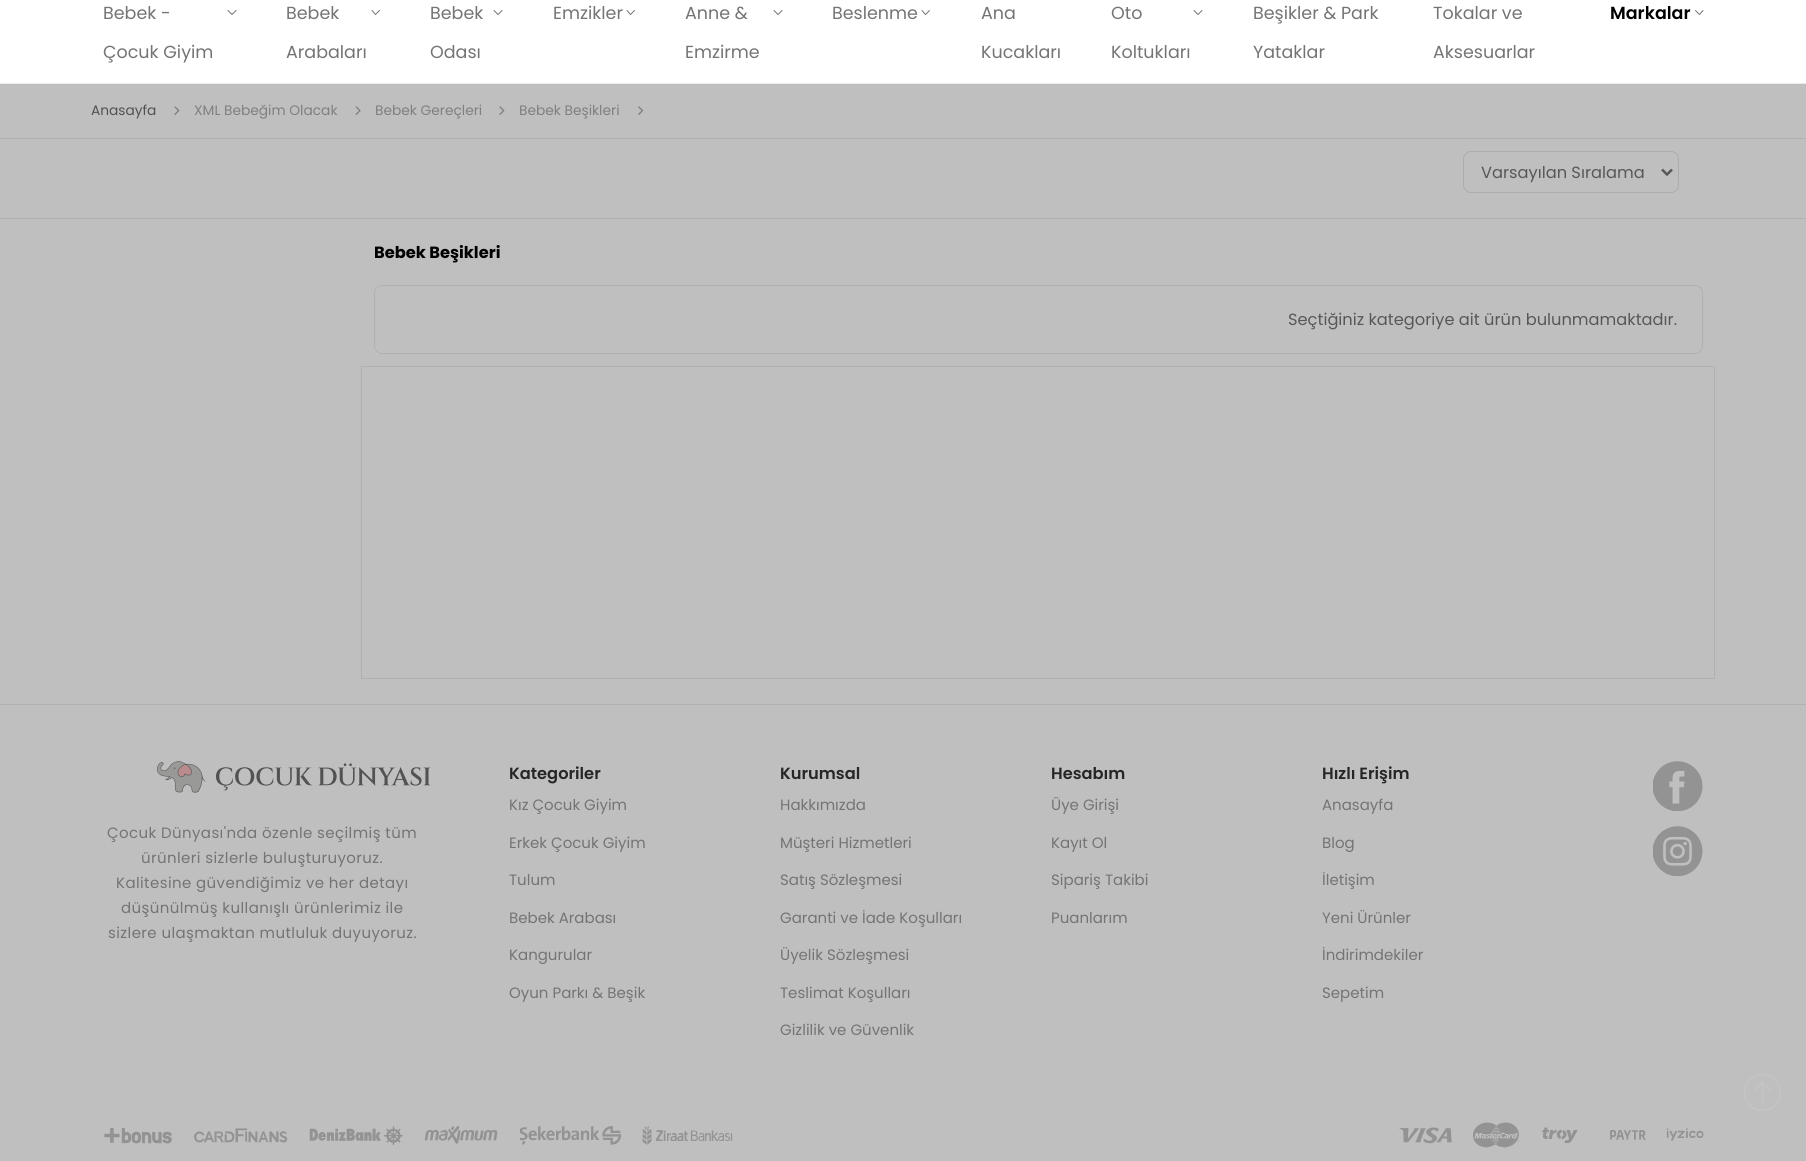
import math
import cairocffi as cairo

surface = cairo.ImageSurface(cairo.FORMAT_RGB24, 1806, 1161)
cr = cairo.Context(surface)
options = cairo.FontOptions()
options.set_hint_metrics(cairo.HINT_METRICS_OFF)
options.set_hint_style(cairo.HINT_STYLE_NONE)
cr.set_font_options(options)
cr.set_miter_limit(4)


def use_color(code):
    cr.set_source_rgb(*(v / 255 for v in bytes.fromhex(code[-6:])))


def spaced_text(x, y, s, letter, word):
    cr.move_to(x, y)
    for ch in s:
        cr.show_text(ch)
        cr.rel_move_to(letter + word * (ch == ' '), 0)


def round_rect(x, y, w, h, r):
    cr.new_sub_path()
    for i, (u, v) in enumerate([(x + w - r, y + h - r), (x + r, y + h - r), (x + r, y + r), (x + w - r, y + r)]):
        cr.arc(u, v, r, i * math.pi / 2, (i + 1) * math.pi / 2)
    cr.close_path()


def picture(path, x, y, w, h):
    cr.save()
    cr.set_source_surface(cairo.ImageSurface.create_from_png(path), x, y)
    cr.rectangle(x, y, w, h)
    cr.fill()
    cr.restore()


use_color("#bfbfbf")
cr.paint()
use_color("#ffffff")
cr.rectangle(0, 0, 1806, 83)
cr.fill()
use_color("#ececec")
cr.rectangle(0, 83, 1806, 1)
cr.fill()
cr.new_path()
cr.move_to(228, 10.5)
cr.line_to(232, 14.5)
cr.line_to(236, 10.5)
use_color("#757575")
cr.set_line_width(1)
cr.set_line_cap(cairo.LINE_CAP_ROUND)
cr.set_line_join(cairo.LINE_JOIN_ROUND)
cr.stroke()
cr.select_font_face("Poppins")
cr.set_font_size(17.5)
use_color("#747474")
cr.move_to(103, 19)
cr.show_text("Bebek -")
cr.move_to(103, 58)
cr.show_text("Çocuk Giyim")
cr.new_path()
cr.move_to(372, 10.5)
cr.line_to(375.5, 14.5)
cr.line_to(379.5, 10.5)
use_color("#757575")
cr.stroke()
use_color("#747474")
cr.move_to(286, 19)
cr.show_text("Bebek")
cr.move_to(286, 58)
cr.show_text("Arabaları")
cr.new_path()
cr.move_to(494, 10.5)
cr.line_to(498, 14.5)
cr.line_to(502, 10.5)
use_color("#757575")
cr.stroke()
use_color("#747474")
cr.move_to(430, 19)
cr.show_text("Bebek")
cr.move_to(430, 58)
cr.show_text("Odası")
cr.new_path()
cr.move_to(627, 10.5)
cr.line_to(630.5, 14.5)
cr.line_to(634.5, 10.5)
use_color("#757575")
cr.stroke()
use_color("#747474")
cr.move_to(553, 19)
cr.show_text("Emzikler")
cr.new_path()
cr.move_to(774, 10.5)
cr.line_to(778, 14.5)
cr.line_to(782, 10.5)
use_color("#757575")
cr.stroke()
use_color("#747474")
cr.move_to(685, 19)
cr.show_text("Anne &")
cr.move_to(685, 58)
cr.show_text("Emzirme")
cr.new_path()
cr.move_to(922, 10.5)
cr.line_to(925.5, 14.5)
cr.line_to(929.5, 10.5)
use_color("#757575")
cr.stroke()
use_color("#747474")
cr.move_to(832, 19)
cr.show_text("Beslenme")
cr.move_to(981, 19)
cr.show_text("Ana")
cr.move_to(981, 58)
cr.show_text("Kucakları")
cr.new_path()
cr.move_to(1194, 10.5)
cr.line_to(1198, 14.5)
cr.line_to(1202, 10.5)
use_color("#757575")
cr.stroke()
use_color("#747474")
cr.move_to(1111, 19)
cr.show_text("Oto")
cr.move_to(1111, 58)
cr.show_text("Koltukları")
cr.move_to(1253, 19)
cr.show_text("Beşikler & Park")
cr.move_to(1253, 58)
cr.show_text("Yataklar")
cr.move_to(1433, 19)
cr.show_text("Tokalar ve")
cr.move_to(1433, 58)
cr.show_text("Aksesuarlar")
cr.new_path()
cr.move_to(1695.5, 10.5)
cr.line_to(1699.5, 14.5)
cr.line_to(1703, 10.5)
use_color("#757575")
cr.stroke()
cr.select_font_face("Poppins SemiBold")
use_color("#000000")
cr.move_to(1610, 19)
cr.show_text("Markalar")
use_color("#b1b1b1")
cr.rectangle(0, 138, 1806, 1)
cr.fill()
picture("img1.png", 174, 106, 6, 9)
cr.select_font_face("Poppins")
cr.set_font_size(13.75)
use_color("#515151")
cr.move_to(91, 115)
cr.show_text("Anasayfa")
picture("img2.png", 355, 106, 6, 9)
use_color("#808080")
cr.move_to(194, 115)
cr.show_text("XML Bebeğim Olacak")
picture("img1.png", 499, 106, 6, 9)
cr.move_to(375, 115)
cr.show_text("Bebek Gereçleri")
picture("img3.png", 638, 106, 6, 9)
cr.move_to(519, 115)
cr.show_text("Bebek Beşikleri")
use_color("#b1b1b1")
cr.rectangle(0, 218, 1806, 1)
cr.fill()
round_rect(1463.5, 151.5, 215, 41, 7.5)
use_color("#acacac")
cr.set_line_cap(cairo.LINE_CAP_BUTT)
cr.set_line_join(cairo.LINE_JOIN_MITER)
cr.stroke()
cr.new_path()
cr.move_to(1662, 169.5)
cr.line_to(1667, 174.5)
cr.line_to(1672, 169.5)
use_color("#585858")
cr.set_line_width(2.5)
cr.stroke()
cr.set_font_size(16.25)
cr.move_to(1481, 178)
cr.show_text("Varsayılan Sıralama")
picture("img4.png", 1744, 1074, 37, 37)
cr.select_font_face("Poppins", cairo.FONT_SLANT_NORMAL, cairo.FONT_WEIGHT_BOLD)
use_color("#000000")
cr.move_to(374, 258)
cr.show_text("Bebek Beşikleri")
round_rect(374.5, 285.5, 1328, 68, 7.5)
use_color("#b1b1b1")
cr.set_line_width(1)
cr.stroke()
cr.select_font_face("Poppins")
use_color("#585858")
cr.move_to(1288, 325)
cr.show_text("Seçtiğiniz kategoriye ait ürün bulunmamaktadır.")
cr.rectangle(361.5, 366.5, 1353, 312)
use_color("#b1b1b1")
cr.stroke()
cr.rectangle(0, 704, 1806, 1)
cr.fill()
picture("img5.png", 157, 761, 274, 32)
cr.set_font_size(15)
use_color("#747474")
spaced_text(107, 838, "Çocuk Dünyası'nda özenle seçilmiş tüm", 0.4, 0)
spaced_text(141, 863, "ürünleri sizlerle buluşturuyoruz.", 0.4, 0)
spaced_text(116, 888, "Kalitesine güvendiğimiz ve her detayı", 0.4, 0)
spaced_text(121, 913, "düşünülmüş kullanışlı ürünlerimiz ile", 0.4, 0)
spaced_text(108, 938, "sizlere ulaşmaktan mutluluk duyuyoruz.", 0.4, 0)
cr.select_font_face("Poppins SemiBold")
cr.set_font_size(16.25)
use_color("#262626")
cr.move_to(509, 779)
cr.show_text("Kategoriler")
cr.select_font_face("Poppins")
cr.set_font_size(15)
use_color("#747474")
cr.move_to(509, 810)
cr.show_text("Kız Çocuk Giyim")
cr.move_to(509, 848)
cr.show_text("Erkek Çocuk Giyim")
cr.move_to(509, 885)
cr.show_text("Tulum")
cr.move_to(509, 923)
cr.show_text("Bebek Arabası")
cr.move_to(509, 960)
cr.show_text("Kangurular")
cr.move_to(509, 998)
cr.show_text("Oyun Parkı & Beşik")
cr.select_font_face("Poppins SemiBold")
cr.set_font_size(16.25)
use_color("#262626")
cr.move_to(780, 779)
cr.show_text("Kurumsal")
cr.select_font_face("Poppins")
cr.set_font_size(15)
use_color("#747474")
cr.move_to(780, 810)
cr.show_text("Hakkımızda")
cr.move_to(780, 848)
cr.show_text("Müşteri Hizmetleri")
cr.move_to(780, 885)
cr.show_text("Satış Sözleşmesi")
cr.move_to(780, 923)
cr.show_text("Garanti ve İade Koşulları")
cr.move_to(780, 960)
cr.show_text("Üyelik Sözleşmesi")
cr.move_to(780, 998)
cr.show_text("Teslimat Koşulları")
cr.move_to(780, 1035)
cr.show_text("Gizlilik ve Güvenlik")
cr.select_font_face("Poppins SemiBold")
cr.set_font_size(16.25)
use_color("#262626")
cr.move_to(1051, 779)
cr.show_text("Hesabım")
cr.select_font_face("Poppins")
cr.set_font_size(15)
use_color("#747474")
cr.move_to(1051, 810)
cr.show_text("Üye Girişi")
cr.move_to(1051, 848)
cr.show_text("Kayıt Ol")
cr.move_to(1051, 885)
cr.show_text("Sipariş Takibi")
cr.move_to(1051, 923)
cr.show_text("Puanlarım")
cr.select_font_face("Poppins SemiBold")
cr.set_font_size(16.25)
use_color("#262626")
cr.move_to(1322, 779)
cr.show_text("Hızlı Erişim")
cr.select_font_face("Poppins")
cr.set_font_size(15)
use_color("#747474")
cr.move_to(1322, 810)
cr.show_text("Anasayfa")
cr.move_to(1322, 848)
cr.show_text("Blog")
cr.move_to(1322, 885)
cr.show_text("İletişim")
cr.move_to(1322, 923)
cr.show_text("Yeni Ürünler")
cr.move_to(1322, 960)
cr.show_text("İndirimdekiler")
cr.move_to(1322, 998)
cr.show_text("Sepetim")
picture("img6.png", 1653, 761, 50, 50)
picture("img7.png", 1653, 826, 50, 50)
picture("img8.png", 104, 1126, 629, 19)
picture("img9.png", 1399, 1122, 305, 26)
surface.write_to_png("result.png")
